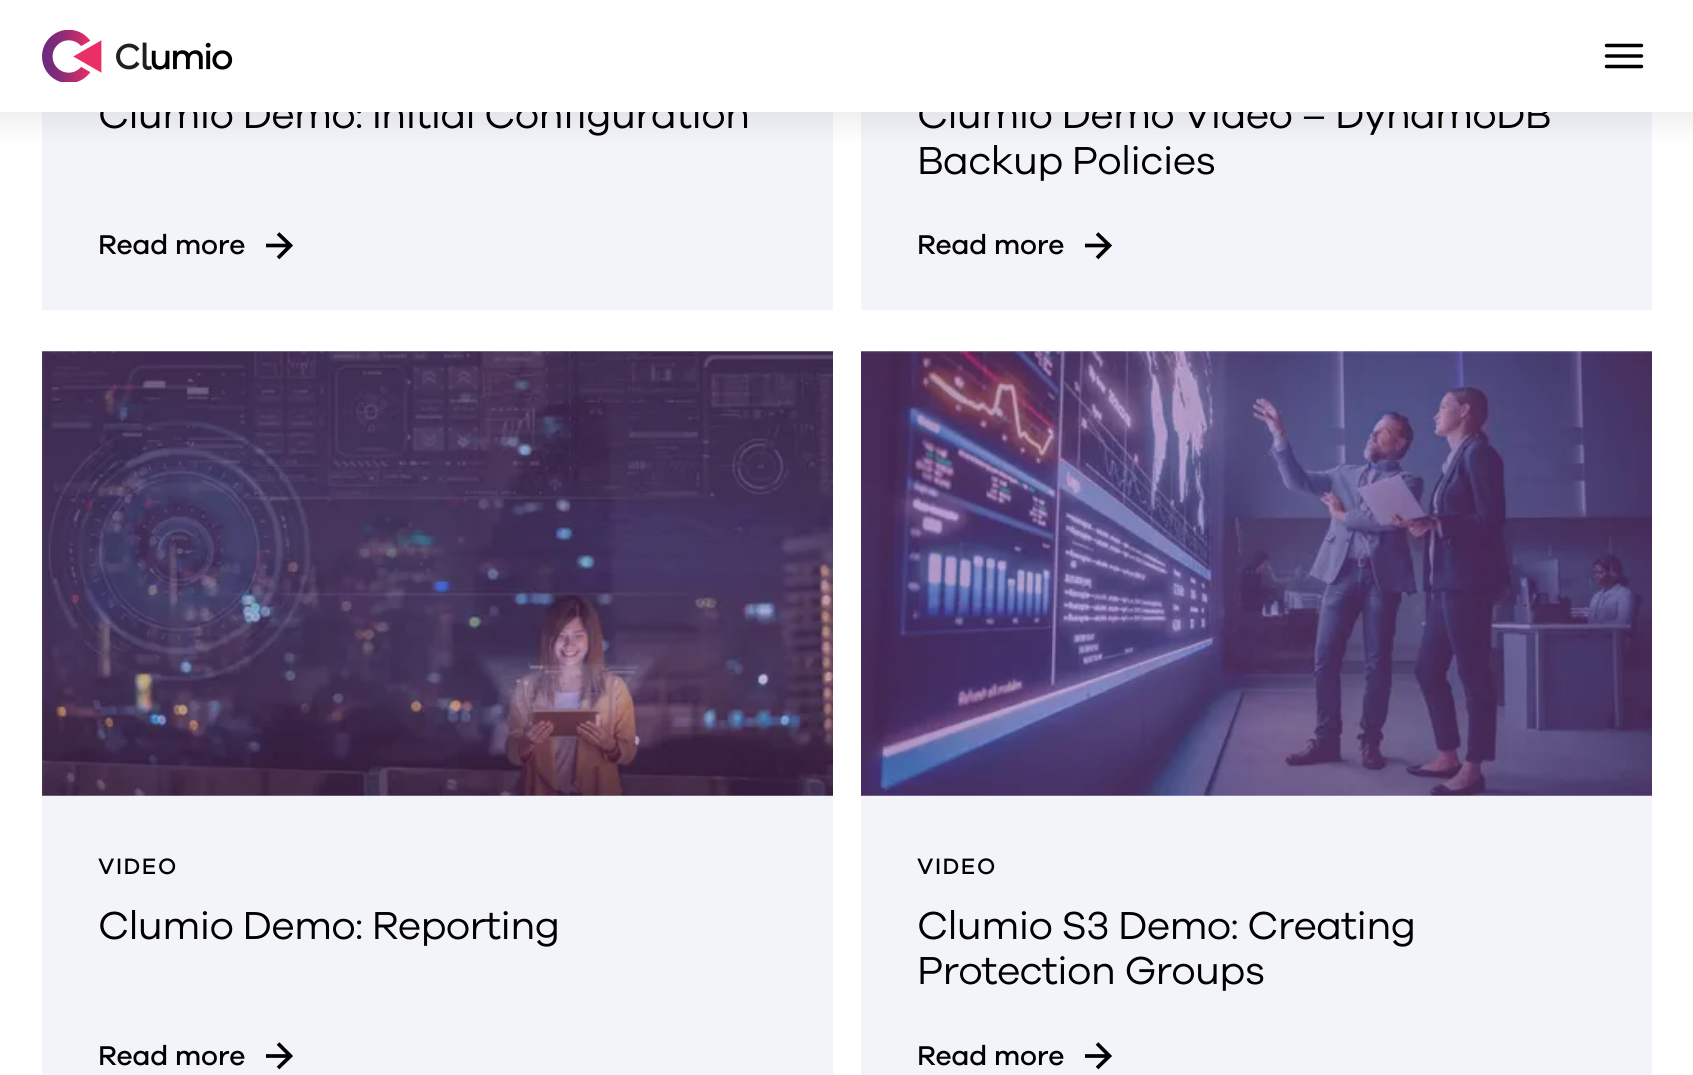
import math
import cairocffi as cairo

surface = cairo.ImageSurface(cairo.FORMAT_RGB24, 1693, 1075)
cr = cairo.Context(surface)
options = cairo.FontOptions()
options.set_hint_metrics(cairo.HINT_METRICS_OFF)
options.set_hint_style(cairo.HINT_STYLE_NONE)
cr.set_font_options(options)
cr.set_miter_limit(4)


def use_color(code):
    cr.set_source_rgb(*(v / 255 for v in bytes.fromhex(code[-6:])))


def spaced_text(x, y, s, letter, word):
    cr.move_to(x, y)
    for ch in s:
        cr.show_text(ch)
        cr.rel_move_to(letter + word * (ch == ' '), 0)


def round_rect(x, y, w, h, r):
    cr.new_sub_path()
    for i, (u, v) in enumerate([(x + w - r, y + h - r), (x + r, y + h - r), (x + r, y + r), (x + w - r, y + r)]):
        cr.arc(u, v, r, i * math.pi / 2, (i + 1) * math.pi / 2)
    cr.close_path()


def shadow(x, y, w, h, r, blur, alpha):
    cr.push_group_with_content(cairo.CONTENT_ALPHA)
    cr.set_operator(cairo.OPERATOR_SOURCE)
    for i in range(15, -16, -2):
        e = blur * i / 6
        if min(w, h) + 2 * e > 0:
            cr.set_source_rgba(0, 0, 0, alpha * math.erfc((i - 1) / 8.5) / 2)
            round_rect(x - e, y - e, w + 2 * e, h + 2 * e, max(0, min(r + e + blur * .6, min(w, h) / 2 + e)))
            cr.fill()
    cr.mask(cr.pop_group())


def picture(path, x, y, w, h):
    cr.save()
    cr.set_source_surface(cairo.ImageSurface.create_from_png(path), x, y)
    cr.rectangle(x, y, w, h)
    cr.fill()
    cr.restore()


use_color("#ffffff")
cr.paint()
use_color("#f3f4fa")
cr.rectangle(42, 112, 791, 198)
cr.fill()
cr.rectangle(861, 112, 791, 198)
cr.fill()
use_color("#0a0a0a")
shadow(-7, -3, 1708, 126, 0, 14, 0.08)
cr.select_font_face("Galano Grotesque")
cr.set_font_size(40.25)
use_color("#000000")
spaced_text(98, 128, "Clumio Demo: Initial Configuration", -0.8, 0)
spaced_text(917, 128, "Clumio Demo Video – DynamoDB", -0.8, 0)
use_color("#ffffff")
cr.rectangle(0, 0, 1693, 112)
cr.fill()
picture("img1.png", 42, 30, 191, 52)
cr.new_path()
cr.move_to(1606.5, 66.5)
cr.line_to(1641.5, 66.5)
cr.move_to(1606.5, 56)
cr.line_to(1641.5, 56)
cr.move_to(1606.5, 45.5)
cr.line_to(1641.5, 45.5)
use_color("#000000")
cr.set_line_width(3.5)
cr.set_line_cap(cairo.LINE_CAP_ROUND)
cr.set_line_join(cairo.LINE_JOIN_ROUND)
cr.stroke()
cr.select_font_face("Galano Grotesque Medium")
cr.set_font_size(28)
spaced_text(98, 254, "Read more", -0.25, 0)
cr.new_path()
cr.move_to(278, 233.5)
cr.line_to(290.5, 245.5)
cr.line_to(278, 258)
cr.move_to(290.5, 245.5)
cr.line_to(266, 245.5)
cr.set_line_width(3.7)
cr.set_line_cap(cairo.LINE_CAP_BUTT)
cr.set_line_join(cairo.LINE_JOIN_MITER)
cr.stroke()
cr.select_font_face("Galano Grotesque")
cr.set_font_size(40.25)
spaced_text(917, 174, "Backup Policies", -0.8, 0)
cr.select_font_face("Galano Grotesque Medium")
cr.set_font_size(28)
spaced_text(917, 254, "Read more", -0.25, 0)
cr.new_path()
cr.move_to(1097, 233.5)
cr.line_to(1109.5, 245.5)
cr.line_to(1097, 258)
cr.move_to(1109.5, 245.5)
cr.line_to(1085, 245.5)
cr.stroke()
use_color("#f3f4fa")
cr.rectangle(42, 352, 791, 723)
cr.fill()
picture("img2.png", 42, 351, 791, 445)
cr.set_font_size(23)
use_color("#000000")
spaced_text(98, 874, "VIDEO", 1.5, 0)
cr.select_font_face("Galano Grotesque")
cr.set_font_size(40.25)
spaced_text(98, 939, "Clumio Demo: Reporting", -0.8, 0)
cr.select_font_face("Galano Grotesque Medium")
cr.set_font_size(28)
spaced_text(98, 1065, "Read more", -0.25, 0)
cr.new_path()
cr.move_to(278, 1043.5)
cr.line_to(290.5, 1056)
cr.line_to(278, 1068)
cr.move_to(290.5, 1056)
cr.line_to(266, 1056)
cr.stroke()
use_color("#f3f4fa")
cr.rectangle(861, 352, 791, 723)
cr.fill()
picture("img3.png", 861, 351, 791, 445)
cr.set_font_size(23)
use_color("#000000")
spaced_text(917, 874, "VIDEO", 1.5, 0)
cr.select_font_face("Galano Grotesque")
cr.set_font_size(40.25)
spaced_text(917, 939, "Clumio S3 Demo: Creating", -0.8, 0)
spaced_text(917, 984, "Protection Groups", -0.8, 0)
cr.select_font_face("Galano Grotesque Medium")
cr.set_font_size(28)
spaced_text(917, 1065, "Read more", -0.25, 0)
cr.new_path()
cr.move_to(1097, 1043.5)
cr.line_to(1109.5, 1056)
cr.line_to(1097, 1068)
cr.move_to(1109.5, 1056)
cr.line_to(1085, 1056)
cr.stroke()
surface.write_to_png("result.png")
